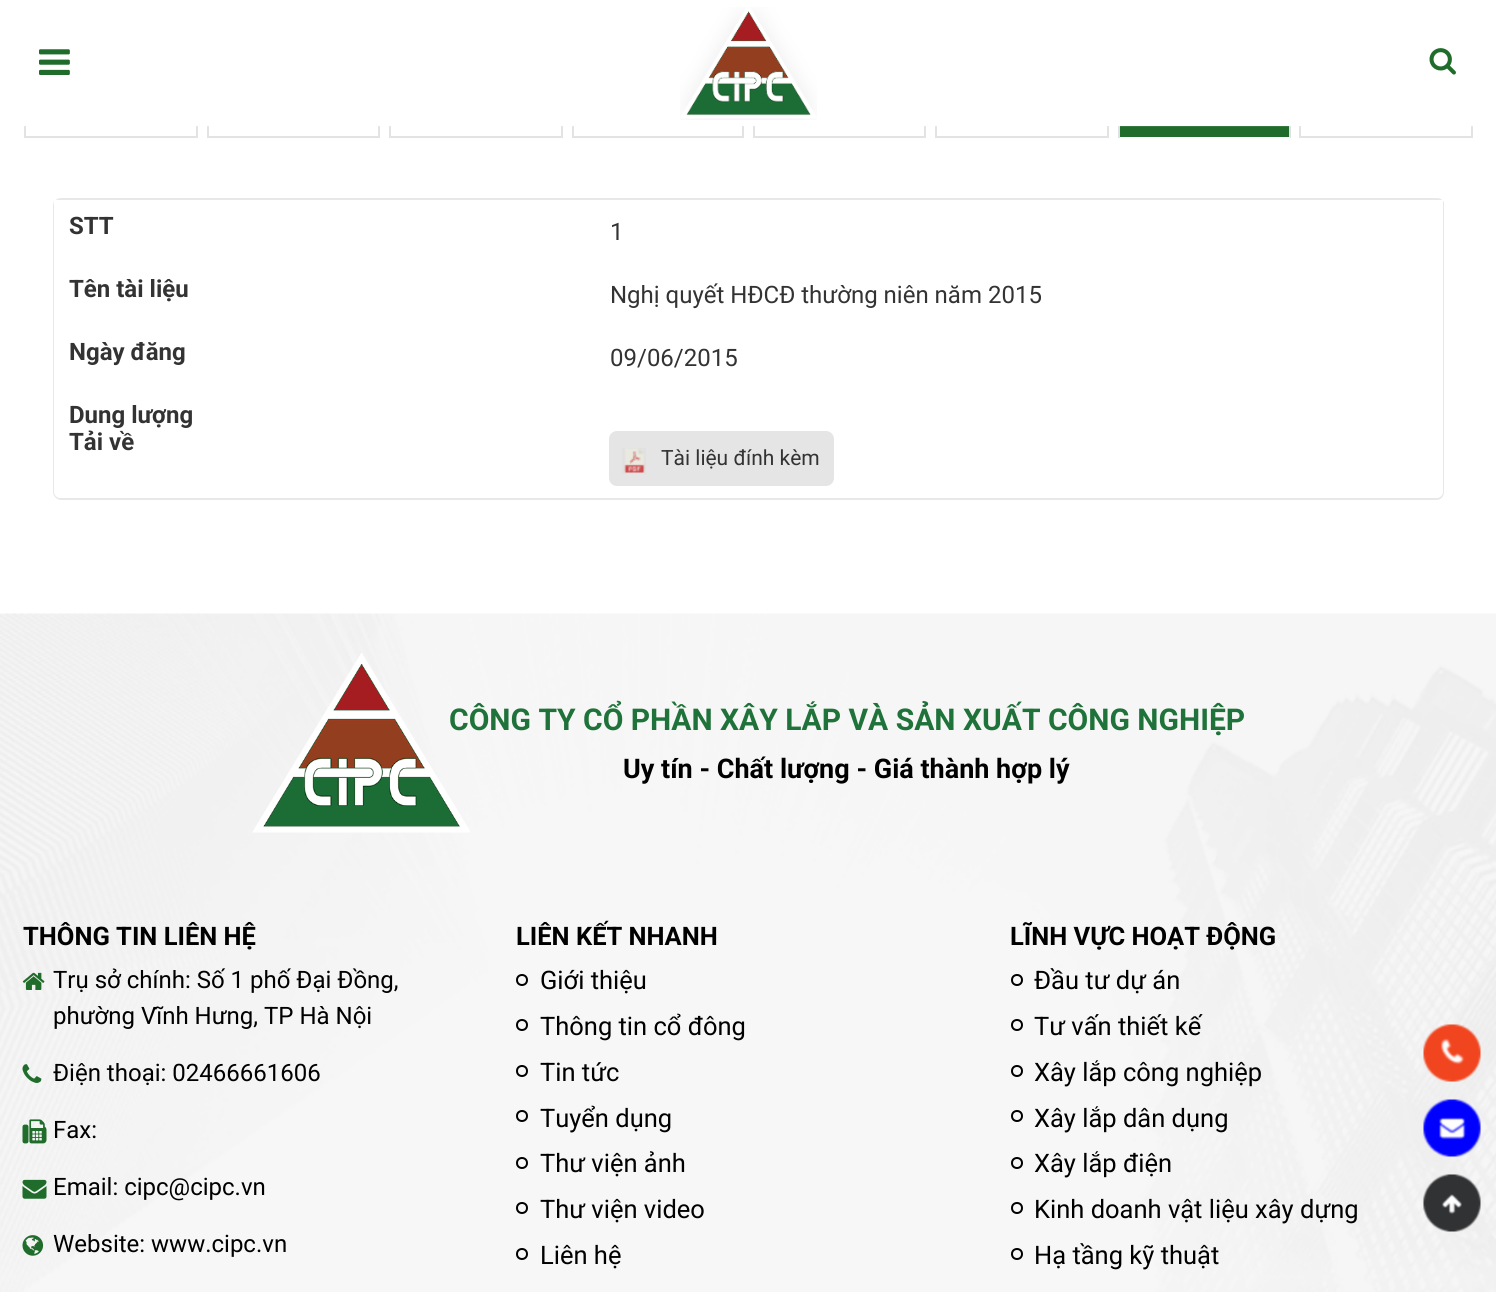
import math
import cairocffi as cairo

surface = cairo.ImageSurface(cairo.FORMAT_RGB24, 1496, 1292)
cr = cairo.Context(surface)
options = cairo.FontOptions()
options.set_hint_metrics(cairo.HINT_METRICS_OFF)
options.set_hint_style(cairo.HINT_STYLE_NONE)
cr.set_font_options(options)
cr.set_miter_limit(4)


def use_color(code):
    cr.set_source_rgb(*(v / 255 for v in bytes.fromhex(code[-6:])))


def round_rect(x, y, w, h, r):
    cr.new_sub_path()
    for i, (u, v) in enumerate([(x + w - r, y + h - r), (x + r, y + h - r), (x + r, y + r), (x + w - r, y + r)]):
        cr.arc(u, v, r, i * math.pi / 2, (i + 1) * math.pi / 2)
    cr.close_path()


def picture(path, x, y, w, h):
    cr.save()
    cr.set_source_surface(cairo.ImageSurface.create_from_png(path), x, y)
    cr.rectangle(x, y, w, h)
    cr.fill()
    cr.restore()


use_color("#ffffff")
cr.paint()
cr.rectangle(25, 79, 172, 58)
use_color("#e3e3e3")
cr.stroke()
cr.rectangle(208, 79, 171, 58)
cr.stroke()
cr.rectangle(390, 79, 172, 58)
cr.stroke()
cr.rectangle(573, 79, 170, 58)
cr.stroke()
cr.rectangle(754, 79, 171, 58)
cr.stroke()
cr.rectangle(936, 79, 172, 58)
cr.stroke()
cr.rectangle(1300, 79, 172, 58)
cr.stroke()
use_color("#ffffff")
cr.rectangle(24, 78, 1449, 48)
cr.fill()
use_color("#206c2b")
cr.rectangle(1120, 126, 169, 11)
cr.fill()
use_color("#dee2e6")
cr.rectangle(1289, 126, 2, 12)
cr.fill()
cr.rectangle(1118, 126, 2, 12)
cr.fill()
cr.set_source_rgba(1, 1, 1, 0.1)
cr.rectangle(23, 126, 1452, 1)
cr.fill()
picture("img1.png", 39, 49, 31, 26)
picture("img2.png", 680, 7, 137, 113)
picture("img3.png", 1429, 48, 27, 27)
use_color("#ffffff")
cr.rectangle(1289, 137, 1, 1)
cr.fill()
use_color("#e8e8e8")
cr.new_path()
cr.move_to(61, 500)
cr.line_to(1437, 500)
cr.curve_to(1441, 500, 1444, 496, 1444, 492)
cr.line_to(1444, 202)
cr.line_to(1443, 201)
cr.line_to(1443, 492)
cr.curve_to(1443, 495, 1440, 498, 1437, 498)
cr.line_to(60, 498)
cr.curve_to(57, 498, 54, 495, 54, 492)
cr.line_to(54, 202)
cr.curve_to(53, 203, 53, 205, 53, 206)
cr.line_to(53, 492)
cr.curve_to(53, 496, 57, 500, 61, 500)
cr.close_path()
cr.fill()
cr.save()
round_rect(53, 198, 1392, 302, 8)
cr.clip()
cr.rectangle(54, 198, 1389, 2)
cr.fill()
cr.restore()
cr.select_font_face("Roboto", cairo.FONT_SLANT_NORMAL, cairo.FONT_WEIGHT_BOLD)
cr.set_font_size(24)
use_color("#333333")
cr.move_to(69, 234)
cr.show_text("STT")
cr.select_font_face("Roboto")
cr.move_to(610, 240)
cr.show_text("1")
cr.select_font_face("Roboto", cairo.FONT_SLANT_NORMAL, cairo.FONT_WEIGHT_BOLD)
cr.move_to(69, 297)
cr.show_text("Tên tài liệu")
cr.select_font_face("Roboto")
cr.move_to(610, 303)
cr.show_text("Nghị quyết HĐCĐ thường niên năm 2015")
cr.select_font_face("Roboto", cairo.FONT_SLANT_NORMAL, cairo.FONT_WEIGHT_BOLD)
cr.move_to(69, 360)
cr.show_text("Ngày đăng")
cr.select_font_face("Roboto")
cr.move_to(610, 366)
cr.show_text("09/06/2015")
cr.select_font_face("Roboto", cairo.FONT_SLANT_NORMAL, cairo.FONT_WEIGHT_BOLD)
cr.move_to(69, 423)
cr.show_text("Dung lượng")
cr.move_to(69, 450)
cr.show_text("Tải về")
use_color("#e5e5e5")
round_rect(609, 431, 225, 55, 8)
cr.fill()
picture("img4.png", 622, 448, 24, 26)
cr.select_font_face("Roboto")
cr.set_font_size(21)
use_color("#333333")
cr.move_to(661, 465)
cr.show_text("Tài liệu đính kèm")
picture("img5.png", 0, 613, 1496, 679)
picture("img6.png", 252, 653, 218, 180)
cr.select_font_face("Roboto", cairo.FONT_SLANT_NORMAL, cairo.FONT_WEIGHT_BOLD)
cr.set_font_size(30)
use_color("#1f7239")
cr.move_to(449, 730)
cr.show_text("CÔNG TY CỔ PHẦN XÂY LẮP VÀ SẢN XUẤT CÔNG NGHIỆP")
cr.set_font_size(27)
use_color("#000000")
cr.move_to(623, 778)
cr.show_text("Uy tín - Chất lượng - Giá thành hợp lý")
cr.set_font_size(25.5)
cr.move_to(23, 945)
cr.show_text("THÔNG TIN LIÊN HỆ")
picture("img7.png", 22, 972, 23, 18)
cr.select_font_face("Roboto")
cr.set_font_size(24)
cr.move_to(53, 988)
cr.show_text("Trụ sở chính: Số 1 phố Đại Đồng,")
cr.move_to(53, 1024)
cr.show_text("phường Vĩnh Hưng, TP Hà Nội")
picture("img8.png", 22, 1064, 20, 19)
cr.move_to(53, 1081)
cr.show_text("Điện thoại: 02466661606")
picture("img9.png", 22, 1119, 25, 25)
cr.move_to(53, 1138)
cr.show_text("Fax:")
picture("img10.png", 22, 1179, 25, 20)
cr.move_to(53, 1195)
cr.show_text("Email: cipc@cipc.vn")
picture("img11.png", 22, 1235, 22, 21)
cr.move_to(53, 1252)
cr.show_text("Website: www.cipc.vn")
cr.select_font_face("Roboto", cairo.FONT_SLANT_NORMAL, cairo.FONT_WEIGHT_BOLD)
cr.set_font_size(25.5)
cr.move_to(516, 945)
cr.show_text("LIÊN KẾT NHANH")
cr.new_path()
cr.arc(522, 980, 5, 0, 2 * math.pi)
cr.stroke()
cr.select_font_face("Roboto")
cr.move_to(540, 989)
cr.show_text("Giới thiệu")
cr.new_path()
cr.arc(522, 1025, 5, 0, 2 * math.pi)
cr.stroke()
cr.move_to(540, 1035)
cr.show_text("Thông tin cổ đông")
cr.new_path()
cr.arc(522, 1071, 5, 0, 2 * math.pi)
cr.stroke()
cr.move_to(540, 1081)
cr.show_text("Tin tức")
cr.new_path()
cr.arc(522, 1116, 5, 0, 2 * math.pi)
cr.stroke()
cr.move_to(540, 1127)
cr.show_text("Tuyển dụng")
cr.new_path()
cr.arc(522, 1163, 5, 0, 2 * math.pi)
cr.stroke()
cr.move_to(540, 1172)
cr.show_text("Thư viện ảnh")
cr.new_path()
cr.arc(522, 1208, 5, 0, 2 * math.pi)
cr.stroke()
cr.move_to(540, 1218)
cr.show_text("Thư viện video")
cr.new_path()
cr.arc(522, 1254, 5, 0, 2 * math.pi)
cr.stroke()
cr.move_to(540, 1264)
cr.show_text("Liên hệ")
cr.select_font_face("Roboto", cairo.FONT_SLANT_NORMAL, cairo.FONT_WEIGHT_BOLD)
cr.move_to(1010, 945)
cr.show_text("LĨNH VỰC HOẠT ĐỘNG")
cr.new_path()
cr.arc(1017, 980, 5, 0, 2 * math.pi)
cr.stroke()
cr.select_font_face("Roboto")
cr.move_to(1034, 989)
cr.show_text("Đầu tư dự án")
cr.new_path()
cr.arc(1017, 1025, 5, 0, 2 * math.pi)
cr.stroke()
cr.move_to(1034, 1035)
cr.show_text("Tư vấn thiết kế")
cr.new_path()
cr.arc(1017, 1071, 5, 0, 2 * math.pi)
cr.stroke()
cr.move_to(1034, 1081)
cr.show_text("Xây lắp công nghiệp")
cr.new_path()
cr.arc(1017, 1116, 5, 0, 2 * math.pi)
cr.stroke()
cr.move_to(1034, 1127)
cr.show_text("Xây lắp dân dụng")
cr.new_path()
cr.arc(1017, 1163, 5, 0, 2 * math.pi)
cr.stroke()
cr.move_to(1034, 1172)
cr.show_text("Xây lắp điện")
cr.new_path()
cr.arc(1017, 1208, 5, 0, 2 * math.pi)
cr.stroke()
cr.move_to(1034, 1218)
cr.show_text("Kinh doanh vật liệu xây dựng")
cr.new_path()
cr.arc(1017, 1254, 5, 0, 2 * math.pi)
cr.stroke()
cr.move_to(1034, 1264)
cr.show_text("Hạ tầng kỹ thuật")
picture("img12.png", 1423, 1024, 58, 58)
picture("img13.png", 1423, 1099, 58, 58)
picture("img14.png", 1423, 1174, 58, 58)
surface.write_to_png("result.png")
